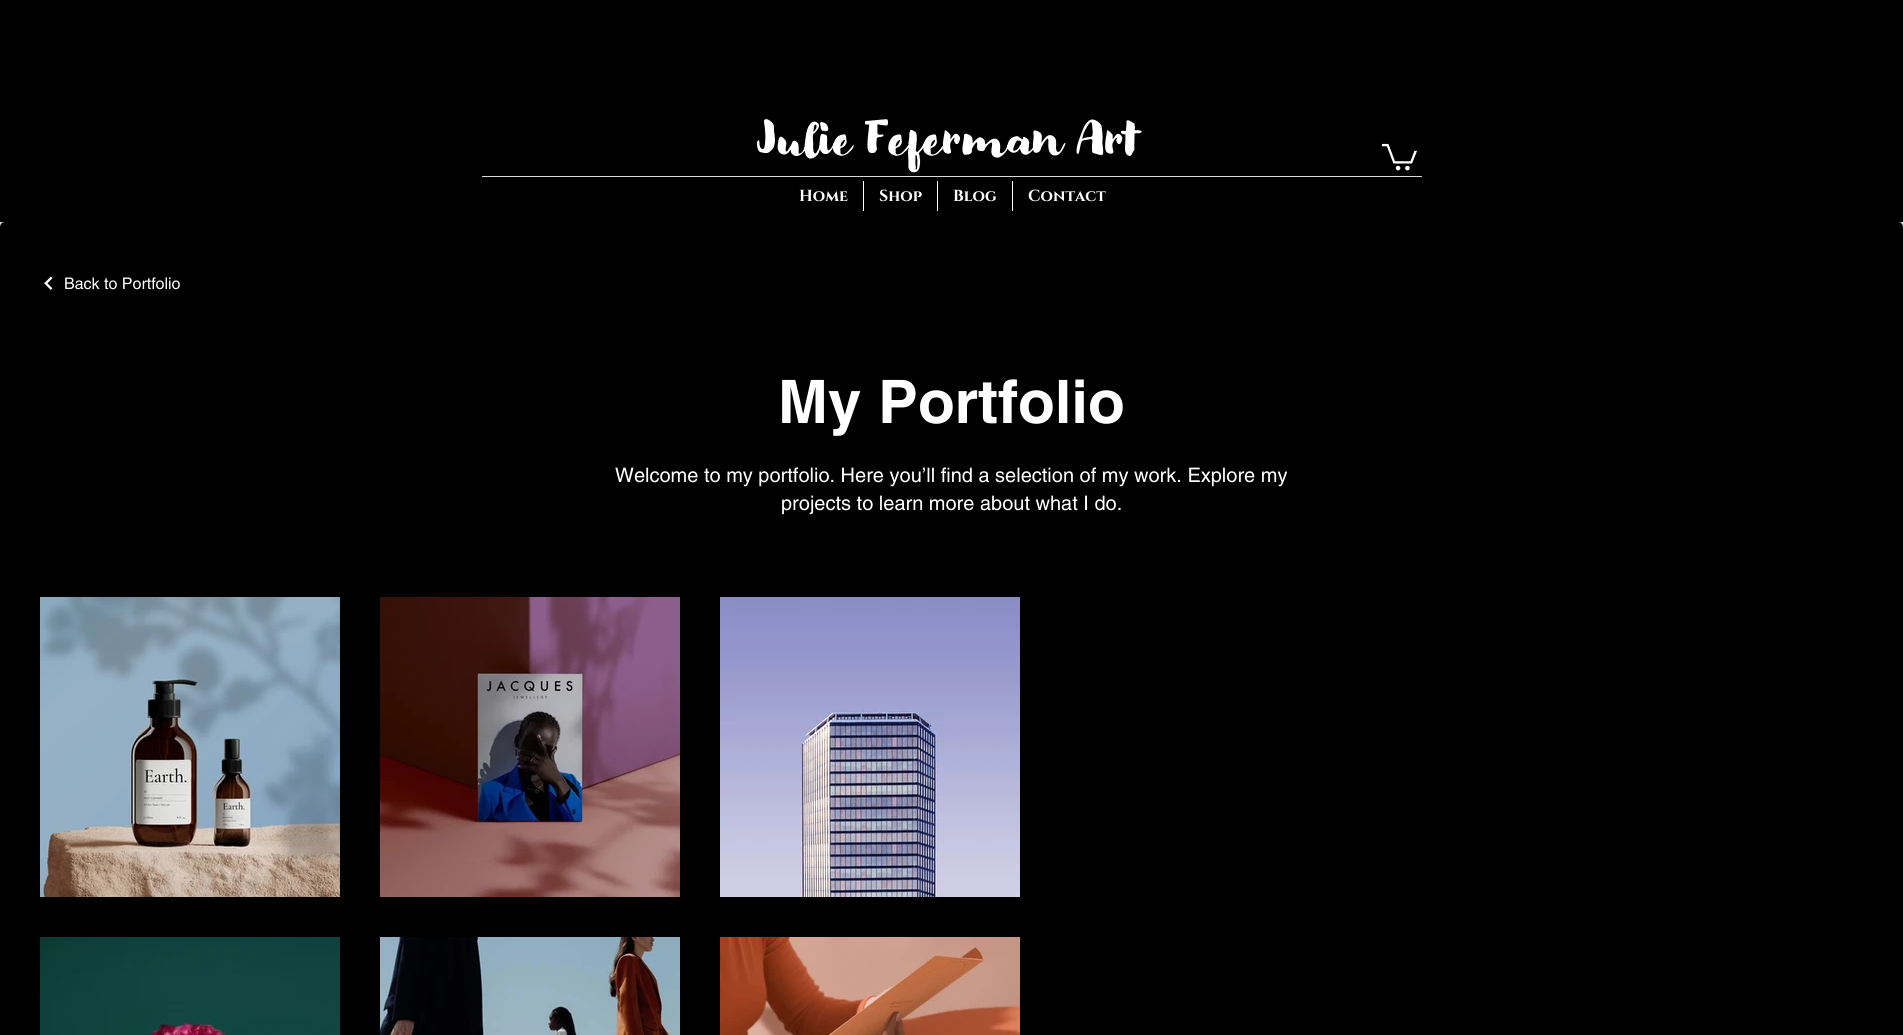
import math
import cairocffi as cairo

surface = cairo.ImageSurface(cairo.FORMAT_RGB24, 1903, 1035)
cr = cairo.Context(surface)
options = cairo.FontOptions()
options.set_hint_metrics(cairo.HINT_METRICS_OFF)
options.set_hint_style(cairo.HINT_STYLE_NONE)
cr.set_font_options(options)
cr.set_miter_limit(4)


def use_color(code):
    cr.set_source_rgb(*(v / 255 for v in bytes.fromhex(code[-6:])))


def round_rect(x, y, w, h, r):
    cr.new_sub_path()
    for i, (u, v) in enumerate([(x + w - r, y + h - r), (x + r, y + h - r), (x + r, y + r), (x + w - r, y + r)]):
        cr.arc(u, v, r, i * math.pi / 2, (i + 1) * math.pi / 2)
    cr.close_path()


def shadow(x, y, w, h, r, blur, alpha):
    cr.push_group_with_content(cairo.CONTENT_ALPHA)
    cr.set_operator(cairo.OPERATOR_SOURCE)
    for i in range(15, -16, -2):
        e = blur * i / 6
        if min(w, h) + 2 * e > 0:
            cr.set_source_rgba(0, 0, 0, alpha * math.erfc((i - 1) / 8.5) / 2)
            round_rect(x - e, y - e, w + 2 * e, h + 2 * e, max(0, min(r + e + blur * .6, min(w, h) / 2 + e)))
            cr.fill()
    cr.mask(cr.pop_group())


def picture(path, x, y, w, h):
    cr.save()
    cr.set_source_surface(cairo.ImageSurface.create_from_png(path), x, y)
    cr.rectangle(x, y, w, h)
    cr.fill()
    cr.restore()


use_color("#ffffff")
cr.paint()
use_color("#000000")
round_rect(0, 222, 1903, 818, 5)
cr.fill()
use_color("#000000")
shadow(0, 0, 1903, 222, 0, 2.5, 0.5)
use_color("#000000")
cr.rectangle(0, 0, 1903, 222)
cr.fill()
cr.select_font_face("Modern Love")
cr.set_font_size(42)
use_color("#ffffff")
cr.move_to(757, 153)
cr.show_text("Julie Feferman Art")
picture("img1.png", 1382, 143, 35, 28)
use_color("#d9d9d9")
cr.rectangle(482, 176, 940, 1)
cr.fill()
cr.select_font_face("Cinzel", cairo.FONT_SLANT_NORMAL, cairo.FONT_WEIGHT_BOLD)
cr.set_font_size(16)
use_color("#ffffff")
cr.move_to(799, 201)
cr.show_text("Home")
cr.rectangle(863, 181, 1, 30)
cr.fill()
cr.move_to(879, 201)
cr.show_text("Shop")
cr.rectangle(937, 181, 1, 30)
cr.fill()
cr.move_to(953, 201)
cr.show_text("Blog")
cr.rectangle(1012, 181, 1, 30)
cr.fill()
cr.move_to(1028, 201)
cr.show_text("Contact")
picture("img2.png", 44, 276, 9, 14)
cr.select_font_face("helvetica")
cr.move_to(64, 289)
cr.show_text("Back to Portfolio")
cr.select_font_face("helvetica", cairo.FONT_SLANT_NORMAL, cairo.FONT_WEIGHT_BOLD)
cr.set_font_size(60)
cr.move_to(778, 423)
cr.show_text("My Portfolio")
cr.select_font_face("helvetica")
cr.set_font_size(20)
cr.move_to(615, 482)
cr.show_text("Welcome to my portfolio. Here you’ll find a selection of my work. Explore my")
cr.move_to(781, 510)
cr.show_text("projects to learn more about what I do.")
picture("img3.png", 40, 597, 300, 300)
picture("img4.png", 380, 597, 300, 300)
picture("img5.png", 720, 597, 300, 300)
picture("img6.png", 40, 937, 300, 98)
picture("img7.png", 380, 937, 300, 98)
picture("img8.png", 720, 937, 300, 98)
surface.write_to_png("result.png")
